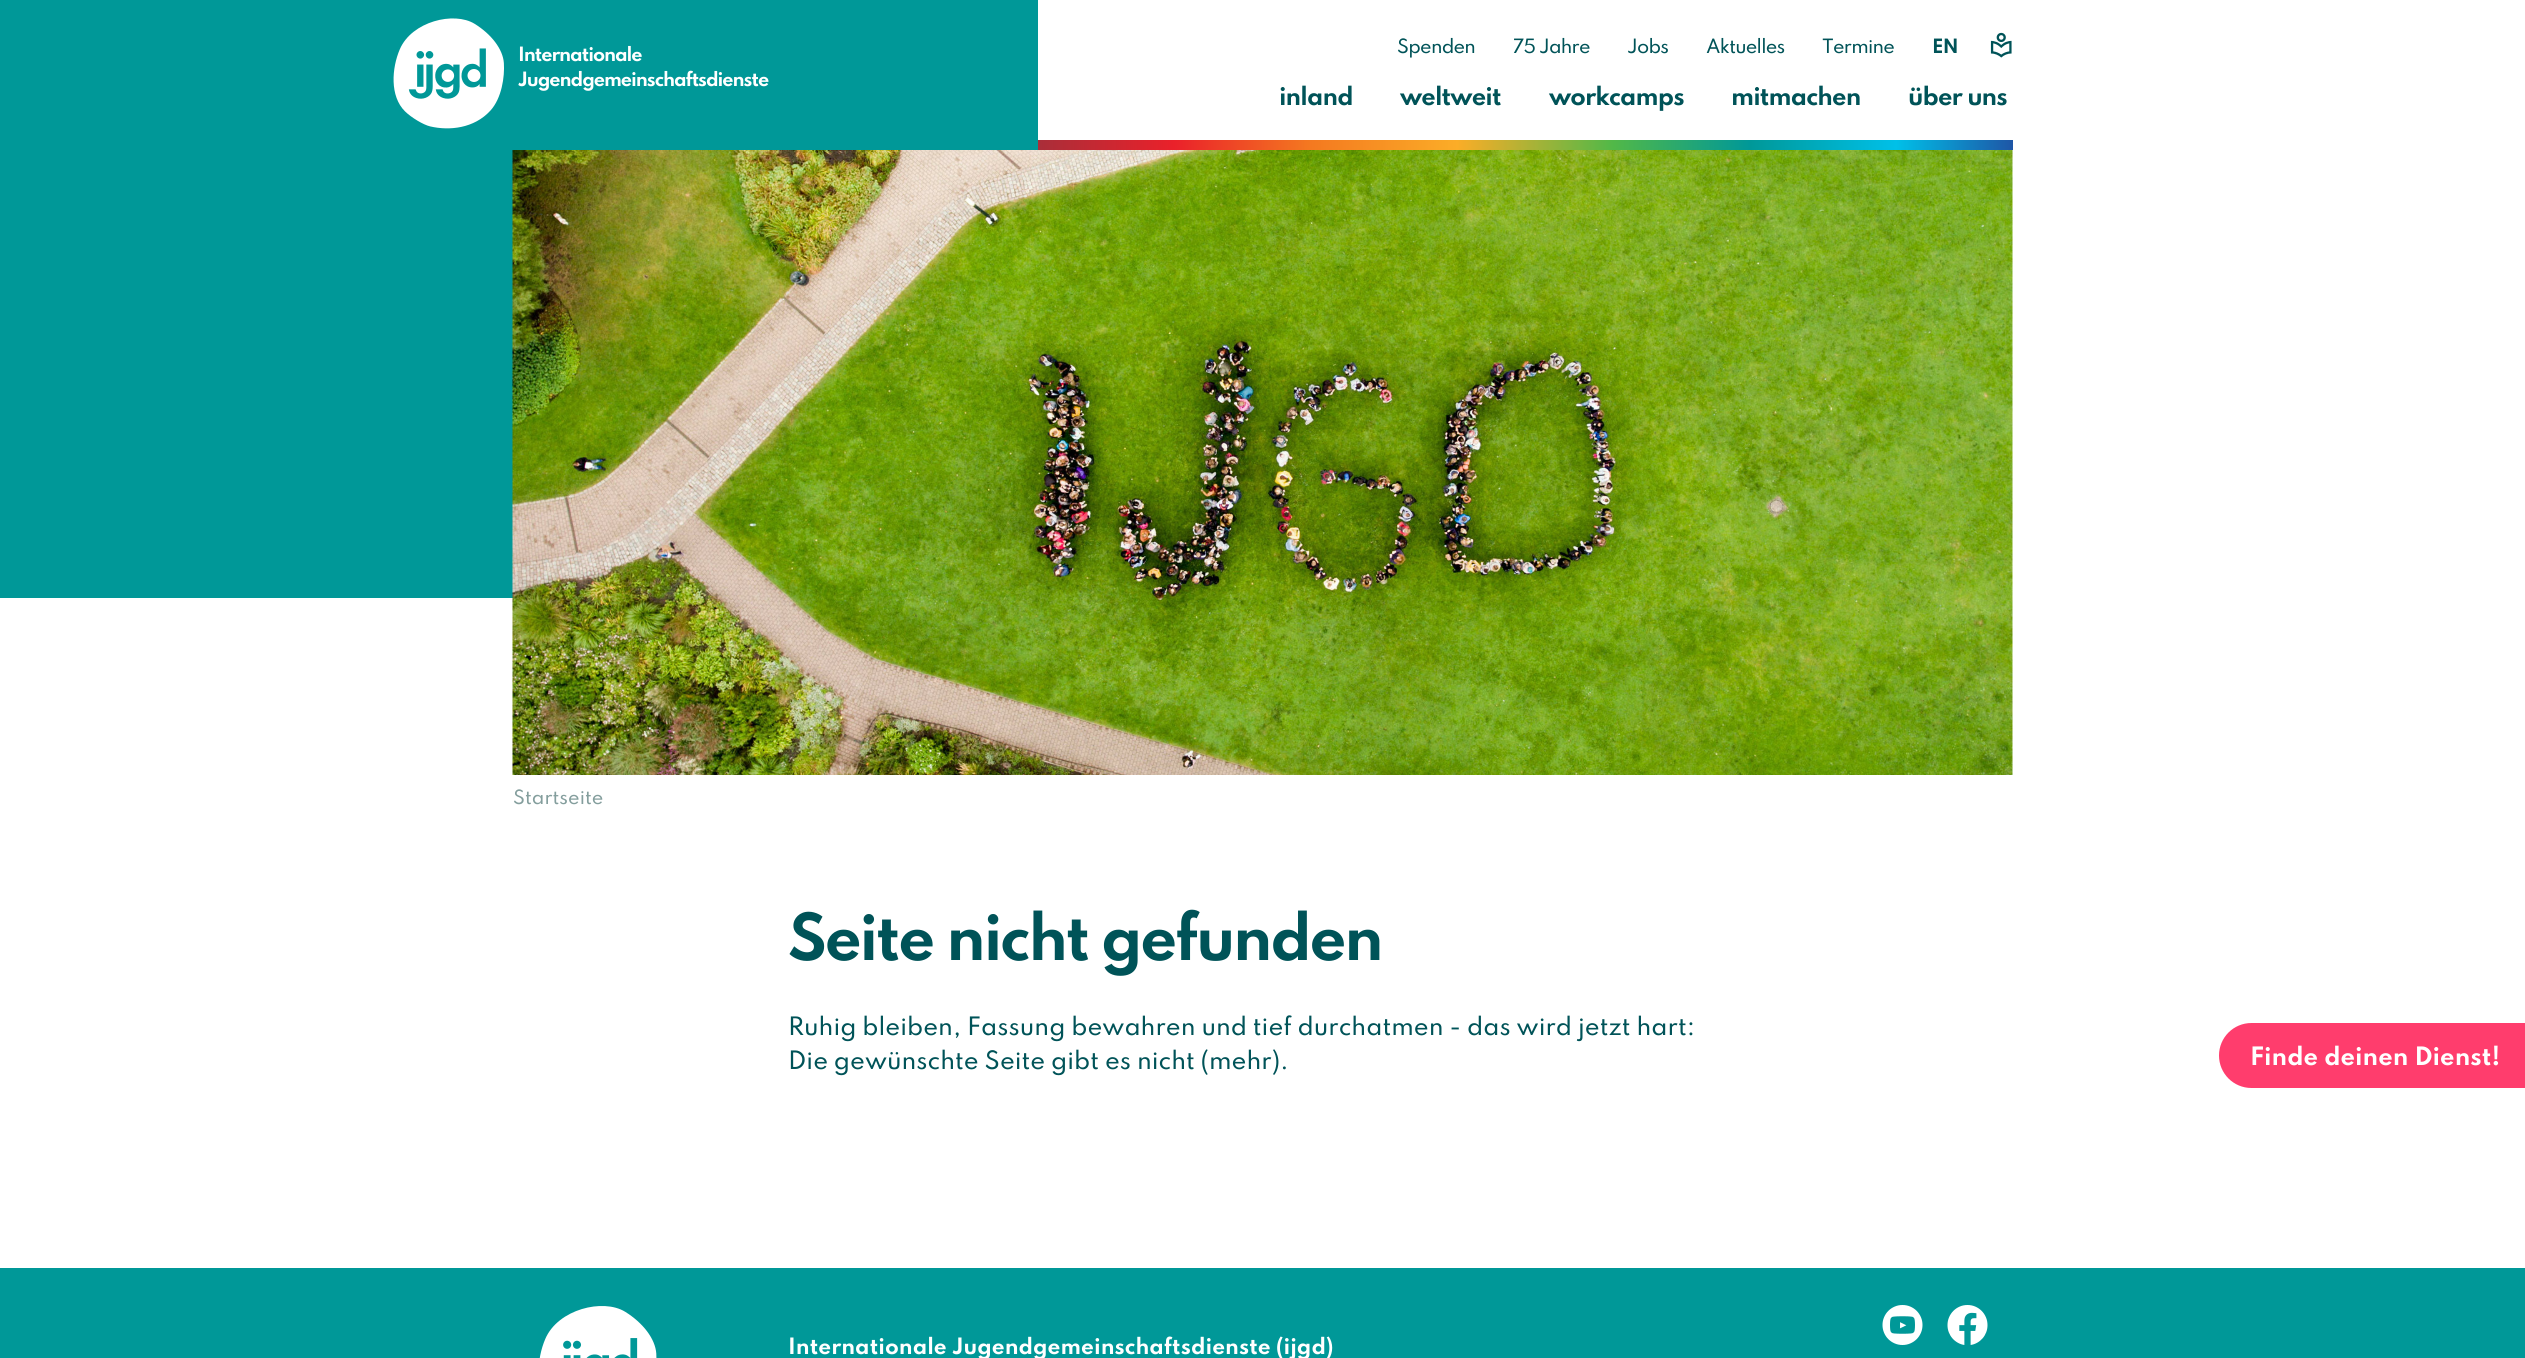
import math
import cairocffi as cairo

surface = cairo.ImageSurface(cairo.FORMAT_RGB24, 2525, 1358)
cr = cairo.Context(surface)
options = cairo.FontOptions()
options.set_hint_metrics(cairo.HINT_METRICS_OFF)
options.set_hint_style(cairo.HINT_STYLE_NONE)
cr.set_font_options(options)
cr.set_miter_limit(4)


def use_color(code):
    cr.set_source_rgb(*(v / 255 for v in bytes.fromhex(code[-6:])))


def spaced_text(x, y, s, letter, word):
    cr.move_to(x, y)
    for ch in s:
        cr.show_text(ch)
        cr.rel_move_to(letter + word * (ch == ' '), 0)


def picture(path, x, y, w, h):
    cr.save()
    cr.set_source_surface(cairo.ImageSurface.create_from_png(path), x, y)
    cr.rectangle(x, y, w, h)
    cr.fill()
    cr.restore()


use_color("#ffffff")
cr.paint()
use_color("#009898")
cr.rectangle(0, 0, 1038, 598)
cr.fill()
picture("img1.png", 393, 18, 111, 111)
cr.select_font_face("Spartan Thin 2 Thin")
cr.set_font_size(17.5)
use_color("#ffffff")
spaced_text(518, 61, "Internationale", -1.1, 0)
spaced_text(518, 86, "Jugendgemeinschaftsdienste", -1.1, 0)
cr.select_font_face("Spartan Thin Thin")
use_color("#005358")
spaced_text(1397, 53, "Spenden", -0.75, 0)
spaced_text(1513, 53, "75 Jahre", -0.75, 0)
spaced_text(1627, 53, "Jobs", -0.75, 0)
spaced_text(1706, 53, "Aktuelles", -0.75, 0)
spaced_text(1822, 53, "Termine", -0.75, 0)
cr.select_font_face("Spartan Thin 2 Thin")
spaced_text(1932, 53, "EN", -0.75, 0)
picture("img2.png", 1990, 32, 22, 26)
cr.set_font_size(22.5)
spaced_text(1279, 105, "inland", -0.9, 0)
spaced_text(1400, 105, "weltweit", -0.9, 0)
spaced_text(1549, 105, "workcamps", -0.9, 0)
spaced_text(1731, 105, "mitmachen", -0.9, 0)
spaced_text(1908, 105, "über uns", -0.9, 0)
gradient = cairo.LinearGradient(1038, 145, 2013, 145)
gradient.add_color_stop_rgba(0, 0.663, 0.18, 0.224, 1)
gradient.add_color_stop_rgba(0.14, 0.918, 0.129, 0.165, 1)
gradient.add_color_stop_rgba(0.28, 0.957, 0.475, 0.125, 1)
gradient.add_color_stop_rgba(0.43, 0.984, 0.678, 0.153, 1)
gradient.add_color_stop_rgba(0.59, 0.318, 0.722, 0.282, 1)
gradient.add_color_stop_rgba(0.73, 0, 0.596, 0.596, 1)
gradient.add_color_stop_rgba(0.88, 0, 0.753, 0.91, 1)
gradient.add_color_stop_rgba(1, 0.118, 0.337, 0.651, 1)
cr.set_source(gradient)
cr.rectangle(1038, 140, 975, 10)
cr.fill()
picture("img3.png", 512, 150, 1501, 625)
cr.select_font_face("Spartan Thin Thin")
cr.set_font_size(17.5)
use_color("#849e9d")
cr.move_to(513, 804)
cr.show_text("Startseite")
cr.select_font_face("Spartan Thin 2 Thin")
cr.set_font_size(57.5)
use_color("#005358")
spaced_text(788, 960, "Seite nicht gefunden", -2.5, 0)
cr.select_font_face("Spartan Thin Thin")
cr.set_font_size(22.5)
cr.move_to(788, 1035)
cr.show_text("Ruhig bleiben, Fassung bewahren und tief durchatmen - das wird jetzt hart:")
cr.move_to(788, 1069)
cr.show_text("Die gewünschte Seite gibt es nicht (mehr).")
use_color("#ff3d6d")
cr.new_path()
cr.move_to(2251.5, 1023)
cr.line_to(2525, 1023)
cr.line_to(2525, 1088)
cr.line_to(2251.5, 1088)
cr.curve_to(2233.5, 1088, 2219, 1073.5, 2219, 1055.5)
cr.curve_to(2219, 1037.5, 2233.5, 1023, 2251.5, 1023)
cr.close_path()
cr.fill()
cr.select_font_face("Spartan Thin 2 Thin")
use_color("#ffffff")
cr.move_to(2250, 1065)
cr.show_text("Finde deinen Dienst!")
use_color("#009898")
cr.rectangle(0, 1268, 2525, 90)
cr.fill()
picture("img4.png", 539, 1306, 118, 52)
cr.set_font_size(20)
use_color("#ffffff")
cr.move_to(788, 1354)
cr.show_text("Internationale Jugendgemeinschaftsdienste (ijgd)")
picture("img5.png", 1882, 1305, 41, 40)
picture("img6.png", 1947, 1305, 41, 40)
surface.write_to_png("result.png")
